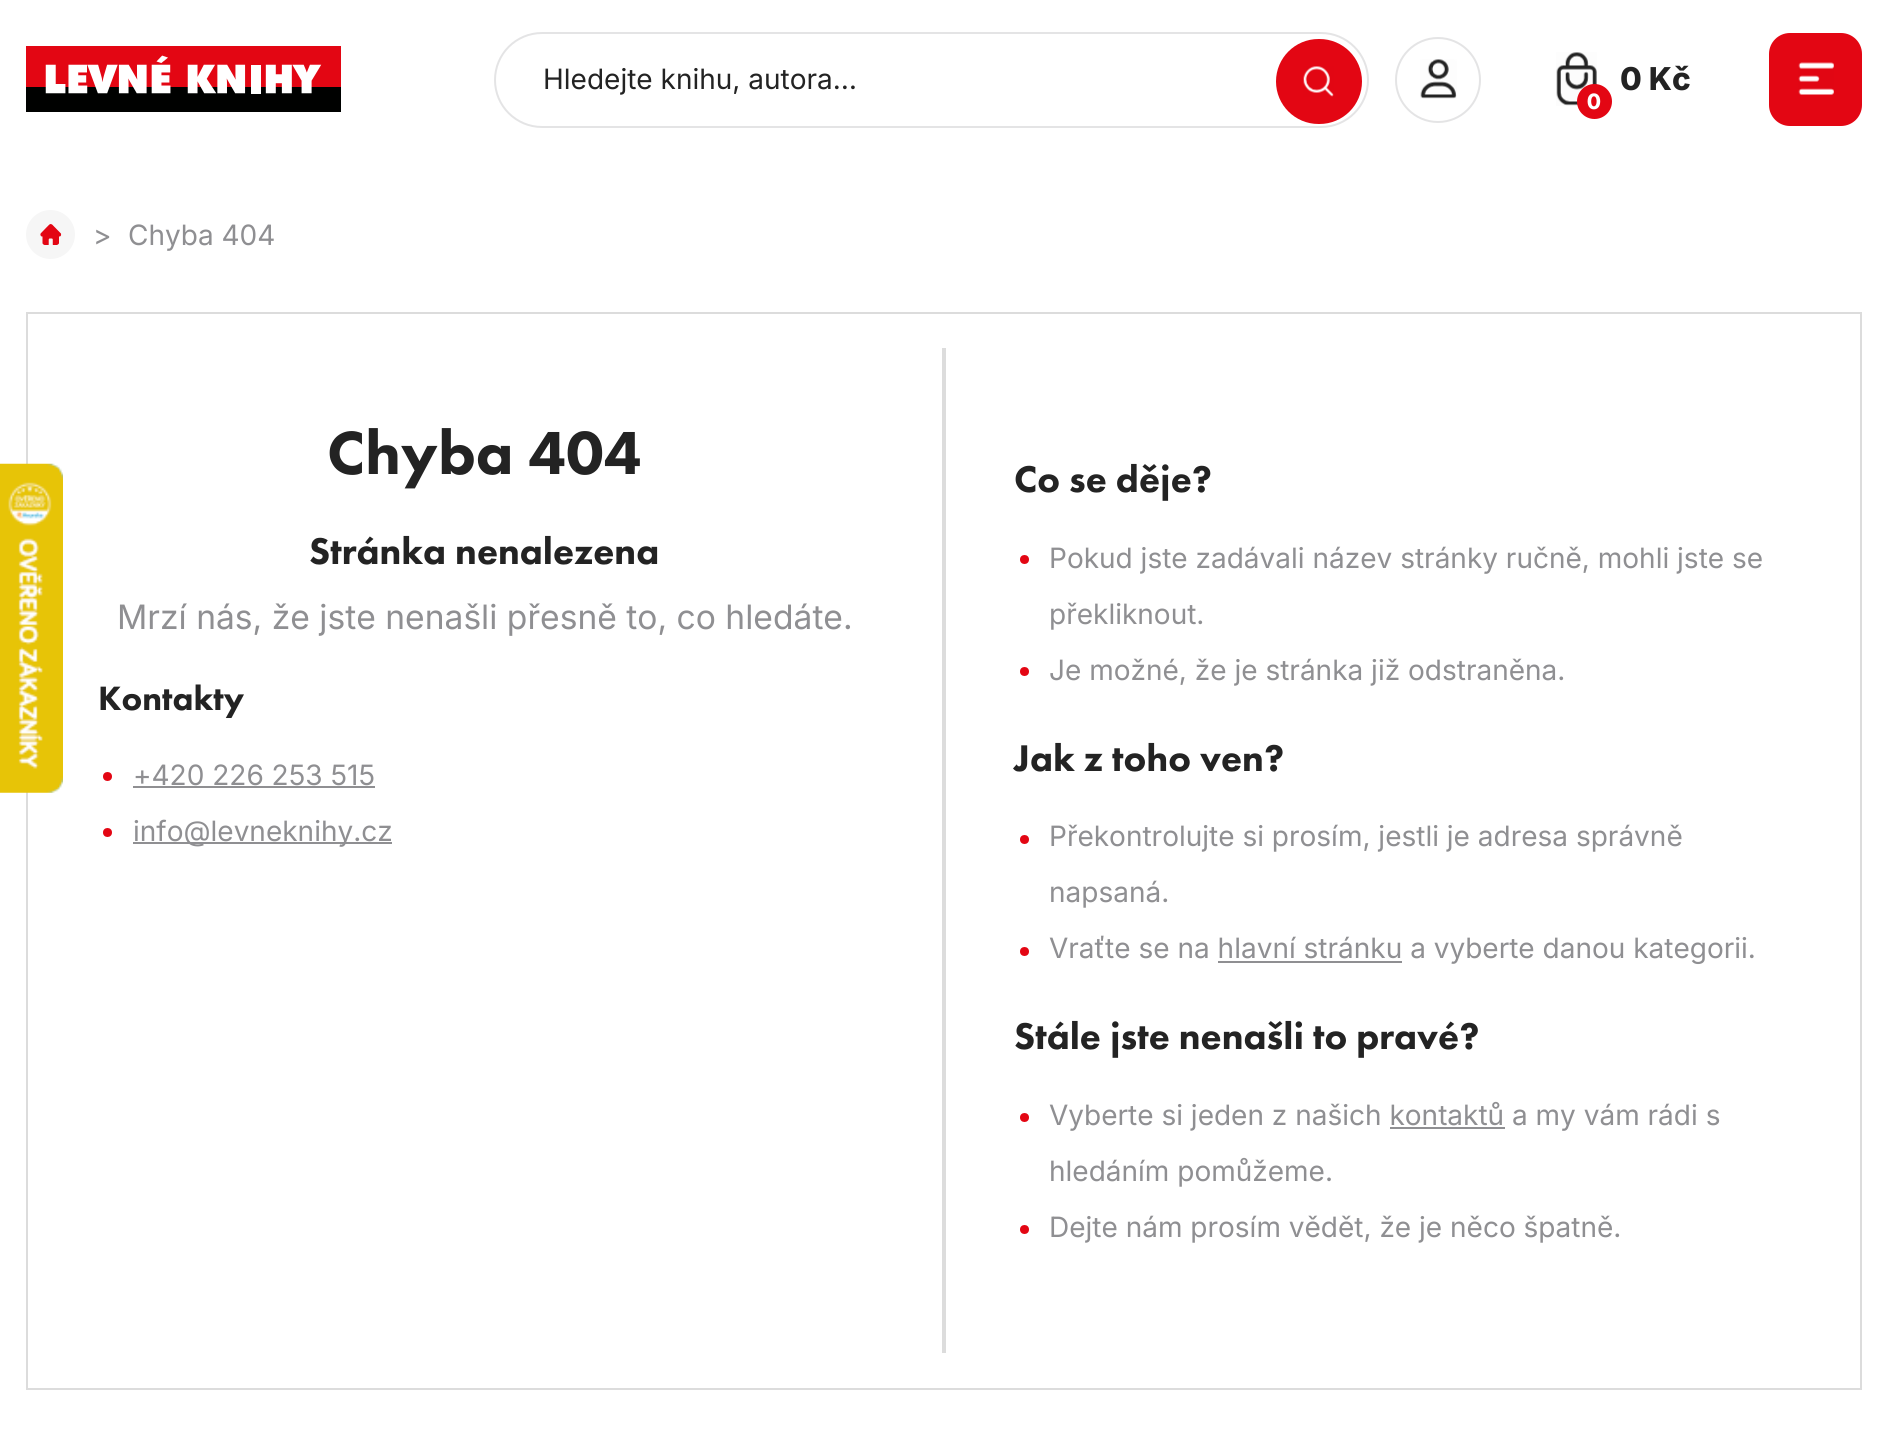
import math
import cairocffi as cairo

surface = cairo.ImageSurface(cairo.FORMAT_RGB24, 1888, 1455)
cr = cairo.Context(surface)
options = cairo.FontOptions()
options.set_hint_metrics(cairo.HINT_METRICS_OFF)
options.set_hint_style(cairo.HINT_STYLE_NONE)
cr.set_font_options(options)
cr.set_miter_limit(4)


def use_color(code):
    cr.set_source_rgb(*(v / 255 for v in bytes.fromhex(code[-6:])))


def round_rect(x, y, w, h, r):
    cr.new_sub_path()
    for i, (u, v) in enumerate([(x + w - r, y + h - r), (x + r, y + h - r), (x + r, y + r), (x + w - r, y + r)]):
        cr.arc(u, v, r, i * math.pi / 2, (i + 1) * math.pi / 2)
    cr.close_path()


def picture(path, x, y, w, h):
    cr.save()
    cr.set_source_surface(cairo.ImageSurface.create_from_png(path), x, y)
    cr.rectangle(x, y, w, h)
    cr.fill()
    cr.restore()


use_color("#ffffff")
cr.paint()
cr.rectangle(27, 313, 1834, 1076)
use_color("#dcdcdc")
cr.stroke()
picture("img1.png", 0, 463, 63, 330)
picture("img2.png", 26, 46, 315, 66)
round_rect(495, 33, 873, 94, 47)
use_color("#e4e4e5")
cr.stroke()
cr.select_font_face("Inter")
cr.set_font_size(28)
use_color("#232323")
cr.move_to(543, 89)
cr.show_text("Hledejte knihu, autora…")
use_color("#e30613")
round_rect(1276, 39, 86, 85, 42.5)
cr.fill()
picture("img3.png", 1303, 66, 31, 31)
cr.arc(1438, 80, 42, 0, 2 * math.pi)
use_color("#e4e4e5")
cr.stroke()
picture("img4.png", 1420, 59, 37, 40)
cr.select_font_face("Inter ExtraBold")
cr.set_font_size(31.5)
use_color("#232323")
cr.move_to(1620, 90)
cr.show_text("0 Kč")
picture("img5.png", 1556, 52, 41, 54)
use_color("#e30613")
cr.arc(1594.5, 101.5, 17.5, 0, 2 * math.pi)
cr.fill()
cr.select_font_face("Futura PT Black")
cr.set_font_size(23)
use_color("#ffffff")
cr.move_to(1587, 109)
cr.show_text("0")
use_color("#e30613")
round_rect(1769, 33, 93, 93, 21)
cr.fill()
picture("img6.png", 1798, 62, 36, 33)
use_color("#f6f6f6")
cr.arc(50.5, 234.5, 24.5, 0, 2 * math.pi)
cr.fill()
picture("img7.png", 40, 224, 22, 21)
cr.select_font_face("Inter")
cr.set_font_size(28)
use_color("#8f8f92")
cr.move_to(93, 245)
cr.show_text(">")
cr.move_to(128, 245)
cr.show_text("Chyba 404")
use_color("#dcdcdc")
cr.rectangle(942, 348, 4, 1005)
cr.fill()
cr.select_font_face("Futura PT Black")
cr.set_font_size(63)
use_color("#232323")
cr.move_to(327, 474)
cr.show_text("Chyba 404")
cr.set_font_size(38.5)
cr.move_to(309, 564)
cr.show_text("Stránka nenalezena")
cr.select_font_face("Inter")
cr.set_font_size(33.6)
use_color("#8f8f92")
cr.move_to(117, 629)
cr.show_text("Mrzí nás, že jste nenašli přesně to, co hledáte.")
cr.select_font_face("Futura PT Black")
cr.set_font_size(35)
use_color("#232323")
cr.move_to(98, 710)
cr.show_text("Kontakty")
use_color("#e30613")
cr.new_path()
cr.arc(107.5, 776.5, 4.5, 0, 2 * math.pi)
cr.fill()
cr.select_font_face("Inter")
cr.set_font_size(28)
use_color("#8f8f92")
cr.move_to(133, 785)
cr.show_text("+420 226 253 515")
cr.rectangle(133, 786, 242, 2)
cr.fill()
use_color("#e30613")
cr.arc(107.5, 832.5, 4.5, 0, 2 * math.pi)
cr.fill()
use_color("#8f8f92")
cr.rectangle(133, 842, 259, 2)
cr.fill()
cr.move_to(133, 841)
cr.show_text("info@levneknihy.cz")
cr.select_font_face("Futura PT Black")
cr.set_font_size(38.5)
use_color("#232323")
cr.move_to(1014, 492)
cr.show_text("Co se děje?")
use_color("#e30613")
cr.new_path()
cr.arc(1024.5, 559.5, 4.5, 0, 2 * math.pi)
cr.fill()
cr.select_font_face("Inter")
cr.set_font_size(28)
use_color("#8f8f92")
cr.move_to(1049, 568)
cr.show_text("Pokud jste zadávali název stránky ručně, mohli jste se")
cr.move_to(1049, 624)
cr.show_text("překliknout.")
use_color("#e30613")
cr.new_path()
cr.arc(1024.5, 671.5, 4.5, 0, 2 * math.pi)
cr.fill()
use_color("#8f8f92")
cr.move_to(1049, 680)
cr.show_text("Je možné, že je stránka již odstraněna.")
cr.select_font_face("Futura PT Black")
cr.set_font_size(38.5)
use_color("#232323")
cr.move_to(1014, 771)
cr.show_text("Jak z toho ven?")
use_color("#e30613")
cr.new_path()
cr.arc(1024.5, 839.5, 4.5, 0, 2 * math.pi)
cr.fill()
cr.select_font_face("Inter")
cr.set_font_size(28)
use_color("#8f8f92")
cr.move_to(1049, 846)
cr.show_text("Překontrolujte si prosím, jestli je adresa správně")
cr.move_to(1049, 902)
cr.show_text("napsaná.")
use_color("#e30613")
cr.new_path()
cr.arc(1024.5, 951.5, 4.5, 0, 2 * math.pi)
cr.fill()
use_color("#8f8f92")
cr.move_to(1049, 958)
cr.show_text("Vraťte se na hlavní stránku a vyberte danou kategorii.")
cr.rectangle(1218, 961, 184, 2)
cr.fill()
cr.select_font_face("Futura PT Black")
cr.set_font_size(38.5)
use_color("#232323")
cr.move_to(1014, 1049)
cr.show_text("Stále jste nenašli to pravé?")
use_color("#e30613")
cr.new_path()
cr.arc(1024.5, 1117.5, 4.5, 0, 2 * math.pi)
cr.fill()
cr.select_font_face("Inter")
cr.set_font_size(28)
use_color("#8f8f92")
cr.move_to(1049, 1125)
cr.show_text("Vyberte si jeden z našich kontaktů a my vám rádi s")
cr.rectangle(1390, 1127, 115, 2)
cr.fill()
cr.move_to(1049, 1181)
cr.show_text("hledáním pomůžeme.")
use_color("#e30613")
cr.new_path()
cr.arc(1024.5, 1229.5, 4.5, 0, 2 * math.pi)
cr.fill()
use_color("#8f8f92")
cr.move_to(1049, 1237)
cr.show_text("Dejte nám prosím vědět, že je něco špatně.")
surface.write_to_png("result.png")
